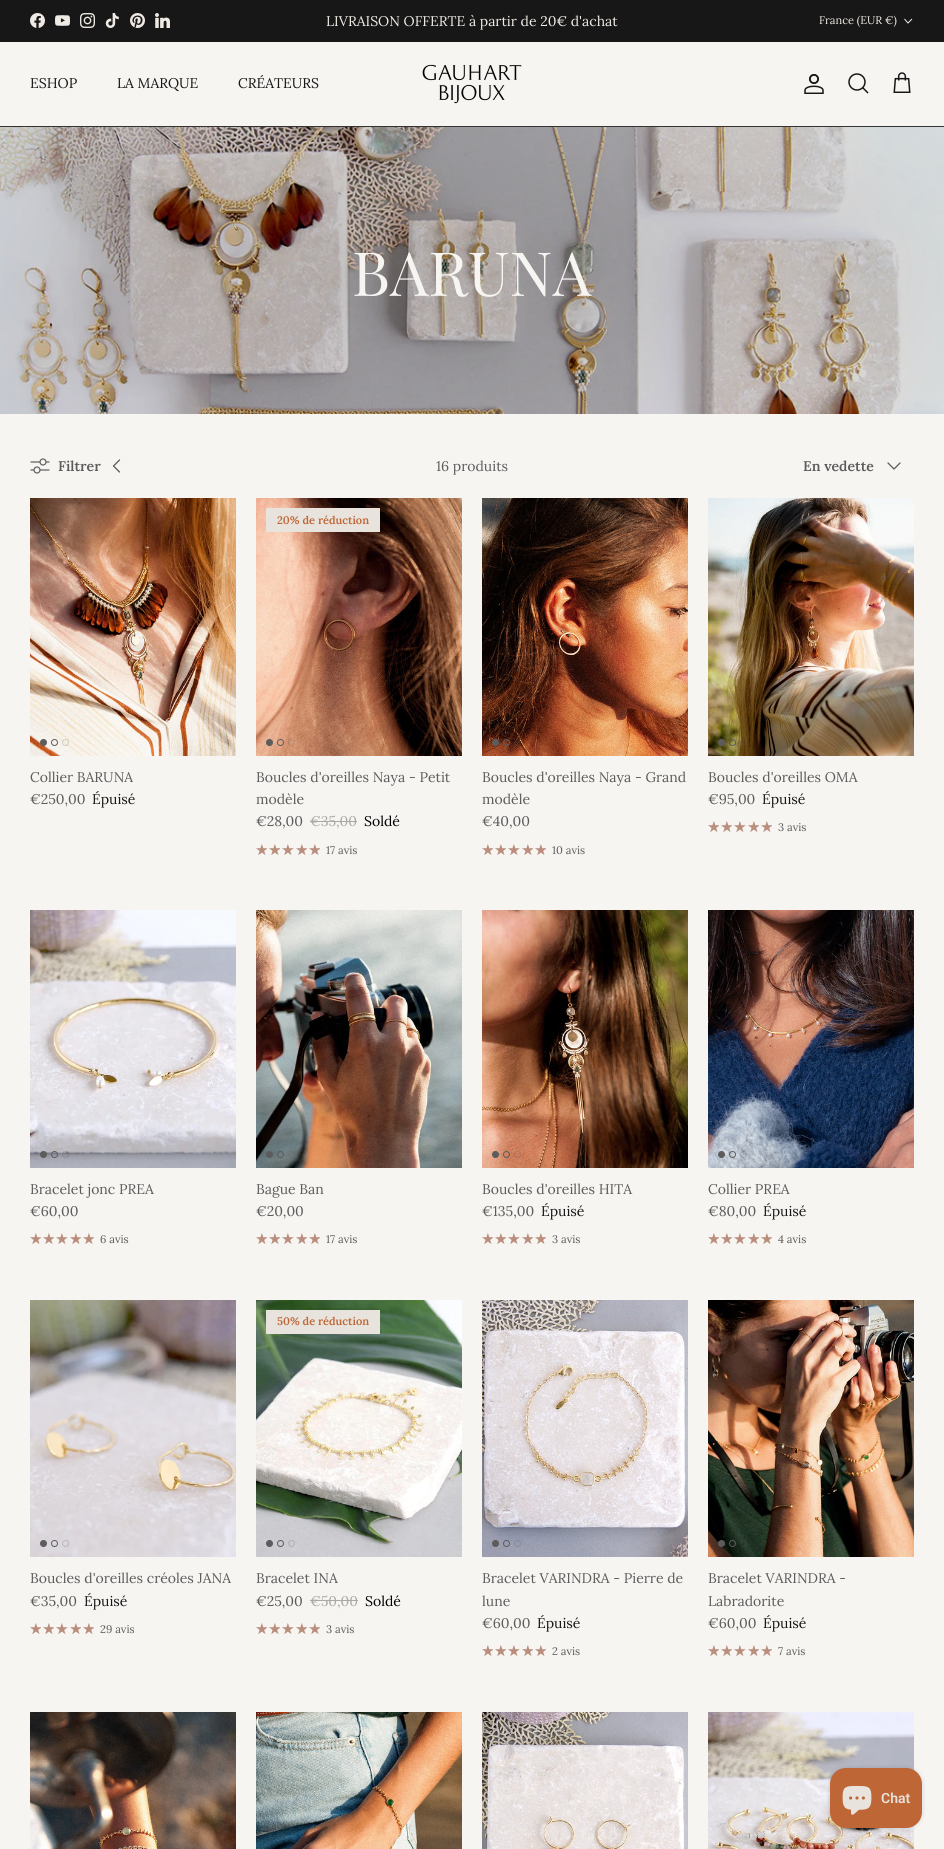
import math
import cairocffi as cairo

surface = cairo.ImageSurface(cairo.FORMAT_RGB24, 944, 1849)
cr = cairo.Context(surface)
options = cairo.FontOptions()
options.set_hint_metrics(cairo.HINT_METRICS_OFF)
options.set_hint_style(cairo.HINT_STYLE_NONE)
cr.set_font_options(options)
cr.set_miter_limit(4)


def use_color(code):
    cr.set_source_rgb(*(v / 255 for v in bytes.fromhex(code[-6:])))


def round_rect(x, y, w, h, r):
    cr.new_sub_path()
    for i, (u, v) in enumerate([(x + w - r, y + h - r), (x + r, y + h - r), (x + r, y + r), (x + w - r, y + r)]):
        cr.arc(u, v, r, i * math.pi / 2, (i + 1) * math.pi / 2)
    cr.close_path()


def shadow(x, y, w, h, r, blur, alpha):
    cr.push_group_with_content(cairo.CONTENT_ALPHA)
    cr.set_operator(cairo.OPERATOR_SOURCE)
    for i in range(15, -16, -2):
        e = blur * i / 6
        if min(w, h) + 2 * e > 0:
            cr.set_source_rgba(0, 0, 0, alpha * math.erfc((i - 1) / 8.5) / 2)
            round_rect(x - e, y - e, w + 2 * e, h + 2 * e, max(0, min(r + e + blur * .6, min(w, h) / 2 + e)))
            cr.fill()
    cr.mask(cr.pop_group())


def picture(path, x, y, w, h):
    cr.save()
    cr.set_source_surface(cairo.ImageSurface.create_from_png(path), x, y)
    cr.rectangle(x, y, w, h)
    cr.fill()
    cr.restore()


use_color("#f7f5f2")
cr.paint()
use_color("#171717")
cr.rectangle(0, 0, 944, 42)
cr.fill()
picture("img1.png", 30, 13, 15, 15)
picture("img2.png", 55, 15, 15, 11)
picture("img3.png", 80, 13, 15, 15)
picture("img4.png", 105, 13, 14, 15)
picture("img5.png", 130, 13, 15, 15)
picture("img6.png", 155, 13, 15, 15)
cr.select_font_face("Lora")
cr.set_font_size(14)
use_color("#efeae4")
cr.move_to(326, 26)
cr.show_text("LIVRAISON OFFERTE à partir de 20€ d'achat")
cr.set_font_size(11)
cr.move_to(819, 24)
cr.show_text("France (EUR €)")
cr.new_path()
cr.move_to(912, 19)
cr.line_to(908, 23)
cr.line_to(904.5, 19)
cr.set_line_width(1)
cr.stroke()
use_color("#343434")
cr.rectangle(0, 126, 944, 1)
cr.fill()
cr.set_font_size(14)
use_color("#171717")
cr.move_to(30, 88)
cr.show_text("ESHOP")
cr.move_to(117, 88)
cr.show_text("LA MARQUE")
cr.move_to(238, 88)
cr.show_text("CRÉATEURS")
picture("img7.png", 422, 64, 100, 40)
picture("img8.png", 804, 74, 20, 20)
cr.arc(857, 82, 8, 0, 2 * math.pi)
cr.set_line_width(1.5)
cr.stroke()
cr.new_path()
cr.move_to(863, 88)
cr.line_to(867.5, 92.5)
cr.set_line_cap(cairo.LINE_CAP_SQUARE)
cr.stroke()
picture("img9.png", 893, 72, 18, 21)
picture("img10.png", 0, 127, 944, 287)
cr.select_font_face("Playfair Display")
cr.set_font_size(61)
use_color("#f7f5f2")
cr.move_to(352, 296)
cr.show_text("BARUNA")
picture("img11.png", 30, 458, 20, 16)
cr.select_font_face("Lora SemiBold")
cr.set_font_size(14)
use_color("#5c5c5c")
cr.move_to(58, 471)
cr.show_text("Filtrer")
cr.new_path()
cr.move_to(119.5, 460)
cr.line_to(113.5, 466)
cr.line_to(119.5, 472)
cr.set_line_width(1.3)
cr.set_line_cap(cairo.LINE_CAP_ROUND)
cr.set_line_join(cairo.LINE_JOIN_ROUND)
cr.stroke()
cr.select_font_face("Lora")
cr.move_to(436, 471)
cr.show_text("16 produits")
cr.select_font_face("Lora SemiBold")
cr.move_to(803, 471)
cr.show_text("En vedette")
cr.new_path()
cr.move_to(888, 463)
cr.line_to(894, 469)
cr.line_to(900, 463)
cr.stroke()
picture("img12.png", 30, 498, 206, 258)
cr.arc(43.5, 742.5, 3, 0, 2 * math.pi)
cr.fill_preserve()
cr.set_line_width(1)
cr.set_line_cap(cairo.LINE_CAP_BUTT)
cr.set_line_join(cairo.LINE_JOIN_MITER)
cr.stroke()
cr.arc(54.5, 742.5, 3, 0, 2 * math.pi)
cr.stroke()
cr.arc(65.5, 742.5, 3, 0, 2 * math.pi)
cr.set_source_rgba(0.361, 0.361, 0.361, 0.25)
cr.stroke()
cr.select_font_face("Lora")
use_color("#5c5c5c")
cr.move_to(30, 782)
cr.show_text("Collier BARUNA")
cr.move_to(30, 804)
cr.show_text("€250,00")
use_color("#171717")
cr.move_to(92, 804)
cr.show_text("Épuisé")
picture("img13.png", 256, 498, 206, 258)
use_color("#e8e3dd")
cr.rectangle(266, 508, 114, 24)
cr.fill()
cr.select_font_face("Lora SemiBold")
cr.set_font_size(11)
use_color("#bf6636")
cr.move_to(277, 524)
cr.show_text("20% de réduction")
use_color("#5c5c5c")
cr.new_path()
cr.arc(269.5, 742.5, 3, 0, 2 * math.pi)
cr.fill_preserve()
cr.stroke()
cr.arc(280.5, 742.5, 3, 0, 2 * math.pi)
cr.stroke()
cr.arc(291.5, 742.5, 3, 0, 2 * math.pi)
cr.set_source_rgba(0.361, 0.361, 0.361, 0.25)
cr.stroke()
cr.select_font_face("Lora")
cr.set_font_size(14)
use_color("#5c5c5c")
cr.move_to(256, 782)
cr.show_text("Boucles d'oreilles Naya - Petit")
cr.move_to(256, 804)
cr.show_text("modèle")
cr.move_to(256, 826)
cr.show_text("€28,00")
use_color("#aaa9a7")
cr.move_to(310, 826)
cr.show_text("€35,00")
cr.rectangle(310, 821, 47, 1)
cr.fill()
use_color("#000000")
cr.move_to(364, 826)
cr.show_text("Soldé")
picture("img14.png", 256, 844, 11, 11)
picture("img14.png", 269, 844, 11, 11)
picture("img15.png", 282, 844, 12, 11)
picture("img14.png", 296, 844, 11, 11)
picture("img14.png", 309, 844, 11, 11)
picture("img16.png", 256, 844, 11, 11)
picture("img16.png", 269, 844, 11, 11)
picture("img17.png", 282, 844, 12, 11)
picture("img16.png", 296, 844, 11, 11)
picture("img16.png", 309, 844, 11, 11)
cr.set_font_size(11)
use_color("#5c5c5c")
cr.move_to(326, 854)
cr.show_text("17 avis")
picture("img18.png", 482, 498, 206, 258)
cr.arc(495.5, 742.5, 3, 0, 2 * math.pi)
cr.fill_preserve()
cr.stroke()
cr.arc(506.5, 742.5, 3, 0, 2 * math.pi)
cr.stroke()
cr.arc(517.5, 742.5, 3, 0, 2 * math.pi)
cr.set_source_rgba(0.361, 0.361, 0.361, 0.25)
cr.stroke()
cr.set_font_size(14)
use_color("#5c5c5c")
cr.move_to(482, 782)
cr.show_text("Boucles d'oreilles Naya - Grand")
cr.move_to(482, 804)
cr.show_text("modèle")
cr.move_to(482, 826)
cr.show_text("€40,00")
picture("img14.png", 482, 844, 11, 11)
picture("img14.png", 495, 844, 11, 11)
picture("img15.png", 508, 844, 12, 11)
picture("img14.png", 522, 844, 11, 11)
picture("img14.png", 535, 844, 11, 11)
picture("img16.png", 482, 844, 11, 11)
picture("img16.png", 495, 844, 11, 11)
picture("img17.png", 508, 844, 12, 11)
picture("img16.png", 522, 844, 11, 11)
picture("img16.png", 535, 844, 11, 11)
cr.set_font_size(11)
cr.move_to(552, 854)
cr.show_text("10 avis")
picture("img19.png", 708, 498, 206, 258)
cr.arc(721.5, 742.5, 3, 0, 2 * math.pi)
cr.fill_preserve()
cr.stroke()
cr.arc(732.5, 742.5, 3, 0, 2 * math.pi)
cr.stroke()
cr.arc(743.5, 742.5, 3, 0, 2 * math.pi)
cr.set_source_rgba(0.361, 0.361, 0.361, 0.25)
cr.stroke()
cr.set_font_size(14)
use_color("#5c5c5c")
cr.move_to(708, 782)
cr.show_text("Boucles d'oreilles OMA")
cr.move_to(708, 804)
cr.show_text("€95,00")
use_color("#171717")
cr.move_to(762, 804)
cr.show_text("Épuisé")
picture("img14.png", 708, 821, 11, 11)
picture("img14.png", 721, 821, 11, 11)
picture("img15.png", 734, 821, 12, 11)
picture("img14.png", 748, 821, 11, 11)
picture("img14.png", 761, 821, 11, 11)
picture("img16.png", 708, 821, 11, 11)
picture("img16.png", 721, 821, 11, 11)
picture("img17.png", 734, 821, 12, 11)
picture("img16.png", 748, 821, 11, 11)
picture("img16.png", 761, 821, 11, 11)
cr.set_font_size(11)
use_color("#5c5c5c")
cr.move_to(778, 831)
cr.show_text("3 avis")
picture("img20.png", 30, 910, 206, 258)
cr.arc(43.5, 1154.5, 3, 0, 2 * math.pi)
cr.fill_preserve()
cr.stroke()
cr.arc(54.5, 1154.5, 3, 0, 2 * math.pi)
cr.stroke()
cr.arc(65.5, 1154.5, 3, 0, 2 * math.pi)
cr.set_source_rgba(0.361, 0.361, 0.361, 0.25)
cr.stroke()
cr.set_font_size(14)
use_color("#5c5c5c")
cr.move_to(30, 1194)
cr.show_text("Bracelet jonc PREA")
cr.move_to(30, 1216)
cr.show_text("€60,00")
picture("img14.png", 30, 1233, 11, 11)
picture("img14.png", 43, 1233, 11, 11)
picture("img15.png", 56, 1233, 12, 11)
picture("img14.png", 70, 1233, 11, 11)
picture("img14.png", 83, 1233, 11, 11)
picture("img16.png", 30, 1233, 11, 11)
picture("img16.png", 43, 1233, 11, 11)
picture("img17.png", 56, 1233, 12, 11)
picture("img16.png", 70, 1233, 11, 11)
picture("img16.png", 83, 1233, 11, 11)
cr.set_font_size(11)
cr.move_to(100, 1243)
cr.show_text("6 avis")
picture("img21.png", 256, 910, 206, 258)
cr.arc(269.5, 1154.5, 3, 0, 2 * math.pi)
cr.fill_preserve()
cr.stroke()
cr.arc(280.5, 1154.5, 3, 0, 2 * math.pi)
cr.stroke()
cr.arc(291.5, 1154.5, 3, 0, 2 * math.pi)
cr.set_source_rgba(0.361, 0.361, 0.361, 0.25)
cr.stroke()
cr.set_font_size(14)
use_color("#5c5c5c")
cr.move_to(256, 1194)
cr.show_text("Bague Ban")
cr.move_to(256, 1216)
cr.show_text("€20,00")
picture("img14.png", 256, 1233, 11, 11)
picture("img14.png", 269, 1233, 11, 11)
picture("img15.png", 282, 1233, 12, 11)
picture("img14.png", 296, 1233, 11, 11)
picture("img14.png", 309, 1233, 11, 11)
picture("img16.png", 256, 1233, 11, 11)
picture("img16.png", 269, 1233, 11, 11)
picture("img17.png", 282, 1233, 12, 11)
picture("img16.png", 296, 1233, 11, 11)
picture("img16.png", 309, 1233, 11, 11)
cr.set_font_size(11)
cr.move_to(326, 1243)
cr.show_text("17 avis")
picture("img22.png", 482, 910, 206, 258)
cr.arc(495.5, 1154.5, 3, 0, 2 * math.pi)
cr.fill_preserve()
cr.stroke()
cr.arc(506.5, 1154.5, 3, 0, 2 * math.pi)
cr.stroke()
cr.arc(517.5, 1154.5, 3, 0, 2 * math.pi)
cr.set_source_rgba(0.361, 0.361, 0.361, 0.25)
cr.stroke()
cr.set_font_size(14)
use_color("#5c5c5c")
cr.move_to(482, 1194)
cr.show_text("Boucles d'oreilles HITA")
cr.move_to(482, 1216)
cr.show_text("€135,00")
use_color("#171717")
cr.move_to(541, 1216)
cr.show_text("Épuisé")
picture("img14.png", 482, 1233, 11, 11)
picture("img14.png", 495, 1233, 11, 11)
picture("img15.png", 508, 1233, 12, 11)
picture("img14.png", 522, 1233, 11, 11)
picture("img14.png", 535, 1233, 11, 11)
picture("img16.png", 482, 1233, 11, 11)
picture("img16.png", 495, 1233, 11, 11)
picture("img17.png", 508, 1233, 12, 11)
picture("img16.png", 522, 1233, 11, 11)
picture("img16.png", 535, 1233, 11, 11)
cr.set_font_size(11)
use_color("#5c5c5c")
cr.move_to(552, 1243)
cr.show_text("3 avis")
picture("img23.png", 708, 910, 206, 258)
cr.arc(721.5, 1154.5, 3, 0, 2 * math.pi)
cr.fill_preserve()
cr.stroke()
cr.arc(732.5, 1154.5, 3, 0, 2 * math.pi)
cr.stroke()
cr.arc(743.5, 1154.5, 3, 0, 2 * math.pi)
cr.set_source_rgba(0.361, 0.361, 0.361, 0.25)
cr.stroke()
cr.set_font_size(14)
use_color("#5c5c5c")
cr.move_to(708, 1194)
cr.show_text("Collier PREA")
cr.move_to(708, 1216)
cr.show_text("€80,00")
use_color("#171717")
cr.move_to(763, 1216)
cr.show_text("Épuisé")
picture("img14.png", 708, 1233, 11, 11)
picture("img14.png", 721, 1233, 11, 11)
picture("img15.png", 734, 1233, 12, 11)
picture("img14.png", 748, 1233, 11, 11)
picture("img14.png", 761, 1233, 11, 11)
picture("img16.png", 708, 1233, 11, 11)
picture("img16.png", 721, 1233, 11, 11)
picture("img17.png", 734, 1233, 12, 11)
picture("img16.png", 748, 1233, 11, 11)
picture("img16.png", 761, 1233, 11, 11)
cr.set_font_size(11)
use_color("#5c5c5c")
cr.move_to(778, 1243)
cr.show_text("4 avis")
picture("img24.png", 30, 1300, 206, 257)
cr.arc(43.5, 1543.5, 3, 0, 2 * math.pi)
cr.fill_preserve()
cr.stroke()
cr.arc(54.5, 1543.5, 3, 0, 2 * math.pi)
cr.stroke()
cr.arc(65.5, 1543.5, 3, 0, 2 * math.pi)
cr.set_source_rgba(0.361, 0.361, 0.361, 0.25)
cr.stroke()
cr.set_font_size(14)
use_color("#5c5c5c")
cr.move_to(30, 1583)
cr.show_text("Boucles d'oreilles créoles JANA")
cr.move_to(30, 1606)
cr.show_text("€35,00")
use_color("#171717")
cr.move_to(84, 1606)
cr.show_text("Épuisé")
picture("img14.png", 30, 1623, 11, 11)
picture("img14.png", 43, 1623, 11, 11)
picture("img15.png", 56, 1623, 12, 11)
picture("img14.png", 70, 1623, 11, 11)
picture("img14.png", 83, 1623, 11, 11)
picture("img16.png", 30, 1623, 11, 11)
picture("img16.png", 43, 1623, 11, 11)
picture("img17.png", 56, 1623, 12, 11)
picture("img16.png", 70, 1623, 11, 11)
picture("img16.png", 83, 1623, 11, 11)
cr.set_font_size(11)
use_color("#5c5c5c")
cr.move_to(100, 1633)
cr.show_text("29 avis")
picture("img25.png", 256, 1300, 206, 257)
use_color("#e8e3dd")
cr.rectangle(266, 1310, 114, 24)
cr.fill()
cr.select_font_face("Lora SemiBold")
use_color("#bf6636")
cr.move_to(277, 1325)
cr.show_text("50% de réduction")
use_color("#5c5c5c")
cr.new_path()
cr.arc(269.5, 1543.5, 3, 0, 2 * math.pi)
cr.fill_preserve()
cr.stroke()
cr.arc(280.5, 1543.5, 3, 0, 2 * math.pi)
cr.stroke()
cr.arc(291.5, 1543.5, 3, 0, 2 * math.pi)
use_color("#b1b0b4")
cr.stroke()
cr.select_font_face("Lora")
cr.set_font_size(14)
use_color("#5c5c5c")
cr.move_to(256, 1583)
cr.show_text("Bracelet INA")
cr.move_to(256, 1606)
cr.show_text("€25,00")
use_color("#aaa9a7")
cr.move_to(310, 1606)
cr.show_text("€50,00")
cr.rectangle(310, 1600, 48, 1)
cr.fill()
use_color("#000000")
cr.move_to(365, 1606)
cr.show_text("Soldé")
picture("img14.png", 256, 1623, 11, 11)
picture("img14.png", 269, 1623, 11, 11)
picture("img15.png", 282, 1623, 12, 11)
picture("img14.png", 296, 1623, 11, 11)
picture("img14.png", 309, 1623, 11, 11)
picture("img16.png", 256, 1623, 11, 11)
picture("img16.png", 269, 1623, 11, 11)
picture("img17.png", 282, 1623, 12, 11)
picture("img16.png", 296, 1623, 11, 11)
picture("img16.png", 309, 1623, 11, 11)
cr.set_font_size(11)
use_color("#5c5c5c")
cr.move_to(326, 1633)
cr.show_text("3 avis")
picture("img26.png", 482, 1300, 206, 257)
cr.arc(495.5, 1543.5, 3, 0, 2 * math.pi)
cr.fill_preserve()
cr.stroke()
cr.arc(506.5, 1543.5, 3, 0, 2 * math.pi)
cr.stroke()
cr.arc(517.5, 1543.5, 3, 0, 2 * math.pi)
cr.set_source_rgba(0.361, 0.361, 0.361, 0.25)
cr.stroke()
cr.set_font_size(14)
use_color("#5c5c5c")
cr.move_to(482, 1583)
cr.show_text("Bracelet VARINDRA - Pierre de")
cr.move_to(482, 1606)
cr.show_text("lune")
cr.move_to(482, 1628)
cr.show_text("€60,00")
use_color("#171717")
cr.move_to(537, 1628)
cr.show_text("Épuisé")
picture("img14.png", 482, 1645, 11, 11)
picture("img14.png", 495, 1645, 11, 11)
picture("img15.png", 508, 1645, 12, 11)
picture("img14.png", 522, 1645, 11, 11)
picture("img14.png", 535, 1645, 11, 11)
picture("img16.png", 482, 1645, 11, 11)
picture("img16.png", 495, 1645, 11, 11)
picture("img17.png", 508, 1645, 12, 11)
picture("img16.png", 522, 1645, 11, 11)
picture("img16.png", 535, 1645, 11, 11)
cr.set_font_size(11)
use_color("#5c5c5c")
cr.move_to(552, 1655)
cr.show_text("2 avis")
picture("img27.png", 708, 1300, 206, 257)
cr.arc(721.5, 1543.5, 3, 0, 2 * math.pi)
cr.fill_preserve()
cr.stroke()
cr.arc(732.5, 1543.5, 3, 0, 2 * math.pi)
cr.stroke()
cr.arc(743.5, 1543.5, 3, 0, 2 * math.pi)
cr.set_source_rgba(0.361, 0.361, 0.361, 0.25)
cr.stroke()
cr.set_font_size(14)
use_color("#5c5c5c")
cr.move_to(708, 1583)
cr.show_text("Bracelet VARINDRA -")
cr.move_to(708, 1606)
cr.show_text("Labradorite")
cr.move_to(708, 1628)
cr.show_text("€60,00")
use_color("#171717")
cr.move_to(763, 1628)
cr.show_text("Épuisé")
picture("img14.png", 708, 1645, 11, 11)
picture("img14.png", 721, 1645, 11, 11)
picture("img15.png", 734, 1645, 12, 11)
picture("img14.png", 748, 1645, 11, 11)
picture("img14.png", 761, 1645, 11, 11)
picture("img16.png", 708, 1645, 11, 11)
picture("img16.png", 721, 1645, 11, 11)
picture("img17.png", 734, 1645, 12, 11)
picture("img16.png", 748, 1645, 11, 11)
picture("img16.png", 761, 1645, 11, 11)
cr.set_font_size(11)
use_color("#5c5c5c")
cr.move_to(778, 1655)
cr.show_text("7 avis")
picture("img28.png", 30, 1712, 206, 137)
picture("img29.png", 256, 1712, 206, 137)
picture("img30.png", 482, 1712, 206, 137)
picture("img31.png", 708, 1712, 206, 137)
use_color("#000000")
shadow(830, 1768, 92, 60, 16, 2.5, 0.15)
use_color("#bf6636")
round_rect(830, 1768, 92, 60, 16)
cr.fill()
picture("img32.png", 842, 1786, 30, 29)
cr.select_font_face("Roboto SemiBold")
cr.set_font_size(14)
use_color("#e8e3dd")
cr.move_to(881, 1803)
cr.show_text("Chat")
surface.write_to_png("result.png")
